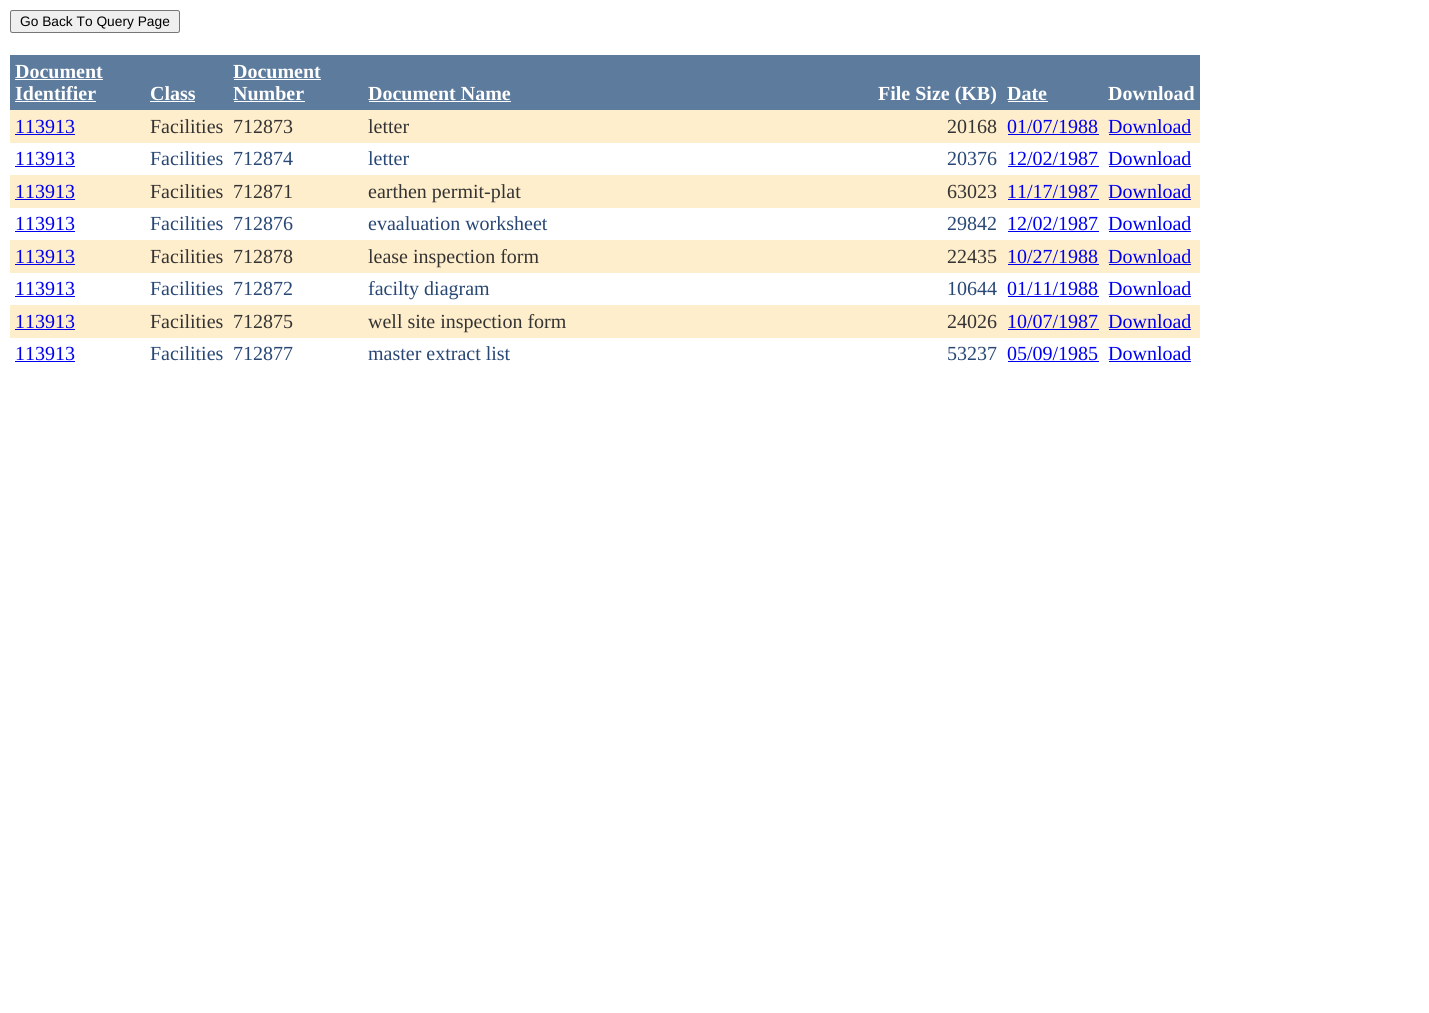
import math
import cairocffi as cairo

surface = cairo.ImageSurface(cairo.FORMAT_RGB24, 1429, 1013)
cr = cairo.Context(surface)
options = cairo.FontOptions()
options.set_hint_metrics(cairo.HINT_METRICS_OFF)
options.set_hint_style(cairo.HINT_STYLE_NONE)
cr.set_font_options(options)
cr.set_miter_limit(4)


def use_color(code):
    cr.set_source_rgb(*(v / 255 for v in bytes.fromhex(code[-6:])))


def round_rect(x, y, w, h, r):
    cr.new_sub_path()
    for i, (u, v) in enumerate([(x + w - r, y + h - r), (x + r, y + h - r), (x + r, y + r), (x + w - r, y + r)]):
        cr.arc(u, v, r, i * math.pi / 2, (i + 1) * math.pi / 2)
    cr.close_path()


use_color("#ffffff")
cr.paint()
use_color("#efefef")
round_rect(10.5, 10.5, 169, 22, 2)
cr.fill_preserve()
use_color("#767676")
cr.set_line_width(1)
cr.stroke()
cr.select_font_face("Liberation Sans")
cr.set_font_size(13.75)
use_color("#000000")
cr.move_to(20, 26)
cr.show_text("Go Back To Query Page")
use_color("#5d7b9d")
cr.rectangle(10, 55, 1190, 55)
cr.fill()
cr.select_font_face("Liberation Serif", cairo.FONT_SLANT_NORMAL, cairo.FONT_WEIGHT_BOLD)
cr.set_font_size(20)
use_color("#ffffff")
cr.move_to(15, 78)
cr.show_text("Document")
cr.rectangle(15, 79, 88, 1)
cr.fill()
cr.move_to(15, 100)
cr.show_text("Identifier")
cr.rectangle(15, 101, 81, 1)
cr.fill()
cr.move_to(150, 100)
cr.show_text("Class")
cr.rectangle(150, 101, 45, 1)
cr.fill()
cr.move_to(233, 78)
cr.show_text("Document")
cr.rectangle(234, 79, 87, 1)
cr.fill()
cr.move_to(233, 100)
cr.show_text("Number")
cr.rectangle(234, 101, 71, 1)
cr.fill()
cr.move_to(368, 100)
cr.show_text("Document Name")
cr.rectangle(369, 101, 142, 1)
cr.fill()
cr.move_to(878, 100)
cr.show_text("File Size (KB)")
cr.move_to(1007, 100)
cr.show_text("Date")
cr.rectangle(1008, 101, 40, 1)
cr.fill()
cr.move_to(1108, 100)
cr.show_text("Download")
use_color("#ffeecc")
cr.rectangle(10, 110, 1190, 33)
cr.fill()
cr.select_font_face("Liberation Serif")
use_color("#0000ee")
cr.move_to(15, 133)
cr.show_text("113913")
cr.rectangle(15, 134, 60, 1)
cr.fill()
use_color("#333333")
cr.move_to(150, 133)
cr.show_text("Facilities")
cr.move_to(233, 133)
cr.show_text("712873")
cr.move_to(368, 133)
cr.show_text("letter")
cr.move_to(947, 133)
cr.show_text("20168")
use_color("#0000ee")
cr.move_to(1007, 133)
cr.show_text("01/07/1988")
cr.rectangle(1008, 134, 91, 1)
cr.fill()
cr.move_to(1108, 133)
cr.show_text("Download")
cr.rectangle(1109, 134, 82, 1)
cr.fill()
cr.move_to(15, 165)
cr.show_text("113913")
cr.rectangle(15, 166, 60, 1)
cr.fill()
use_color("#284775")
cr.move_to(150, 165)
cr.show_text("Facilities")
cr.move_to(233, 165)
cr.show_text("712874")
cr.move_to(368, 165)
cr.show_text("letter")
cr.move_to(947, 165)
cr.show_text("20376")
use_color("#0000ee")
cr.move_to(1007, 165)
cr.show_text("12/02/1987")
cr.rectangle(1008, 166, 91, 1)
cr.fill()
cr.move_to(1108, 165)
cr.show_text("Download")
cr.rectangle(1109, 166, 82, 1)
cr.fill()
use_color("#ffeecc")
cr.rectangle(10, 175, 1190, 33)
cr.fill()
use_color("#0000ee")
cr.move_to(15, 198)
cr.show_text("113913")
cr.rectangle(15, 199, 60, 1)
cr.fill()
use_color("#333333")
cr.move_to(150, 198)
cr.show_text("Facilities")
cr.move_to(233, 198)
cr.show_text("712871")
cr.move_to(368, 198)
cr.show_text("earthen permit-plat")
cr.move_to(947, 198)
cr.show_text("63023")
use_color("#0000ee")
cr.move_to(1007, 198)
cr.show_text("11/17/1987")
cr.rectangle(1008, 199, 91, 1)
cr.fill()
cr.move_to(1108, 198)
cr.show_text("Download")
cr.rectangle(1109, 199, 82, 1)
cr.fill()
cr.move_to(15, 230)
cr.show_text("113913")
cr.rectangle(15, 231, 60, 1)
cr.fill()
use_color("#284775")
cr.move_to(150, 230)
cr.show_text("Facilities")
cr.move_to(233, 230)
cr.show_text("712876")
cr.move_to(368, 230)
cr.show_text("evaaluation worksheet")
cr.move_to(947, 230)
cr.show_text("29842")
use_color("#0000ee")
cr.move_to(1007, 230)
cr.show_text("12/02/1987")
cr.rectangle(1008, 231, 91, 1)
cr.fill()
cr.move_to(1108, 230)
cr.show_text("Download")
cr.rectangle(1109, 231, 82, 1)
cr.fill()
use_color("#ffeecc")
cr.rectangle(10, 240, 1190, 33)
cr.fill()
use_color("#0000ee")
cr.move_to(15, 263)
cr.show_text("113913")
cr.rectangle(15, 264, 60, 1)
cr.fill()
use_color("#333333")
cr.move_to(150, 263)
cr.show_text("Facilities")
cr.move_to(233, 263)
cr.show_text("712878")
cr.move_to(368, 263)
cr.show_text("lease inspection form")
cr.move_to(947, 263)
cr.show_text("22435")
use_color("#0000ee")
cr.move_to(1007, 263)
cr.show_text("10/27/1988")
cr.rectangle(1008, 264, 91, 1)
cr.fill()
cr.move_to(1108, 263)
cr.show_text("Download")
cr.rectangle(1109, 264, 82, 1)
cr.fill()
cr.move_to(15, 295)
cr.show_text("113913")
cr.rectangle(15, 296, 60, 1)
cr.fill()
use_color("#284775")
cr.move_to(150, 295)
cr.show_text("Facilities")
cr.move_to(233, 295)
cr.show_text("712872")
cr.move_to(368, 295)
cr.show_text("facilty diagram")
cr.move_to(947, 295)
cr.show_text("10644")
use_color("#0000ee")
cr.move_to(1007, 295)
cr.show_text("01/11/1988")
cr.rectangle(1008, 296, 91, 1)
cr.fill()
cr.move_to(1108, 295)
cr.show_text("Download")
cr.rectangle(1109, 296, 82, 1)
cr.fill()
use_color("#ffeecc")
cr.rectangle(10, 305, 1190, 33)
cr.fill()
use_color("#0000ee")
cr.move_to(15, 328)
cr.show_text("113913")
cr.rectangle(15, 329, 60, 1)
cr.fill()
use_color("#333333")
cr.move_to(150, 328)
cr.show_text("Facilities")
cr.move_to(233, 328)
cr.show_text("712875")
cr.move_to(368, 328)
cr.show_text("well site inspection form")
cr.move_to(947, 328)
cr.show_text("24026")
use_color("#0000ee")
cr.move_to(1007, 328)
cr.show_text("10/07/1987")
cr.rectangle(1008, 329, 91, 1)
cr.fill()
cr.move_to(1108, 328)
cr.show_text("Download")
cr.rectangle(1109, 329, 82, 1)
cr.fill()
cr.move_to(15, 360)
cr.show_text("113913")
cr.rectangle(15, 361, 60, 1)
cr.fill()
use_color("#284775")
cr.move_to(150, 360)
cr.show_text("Facilities")
cr.move_to(233, 360)
cr.show_text("712877")
cr.move_to(368, 360)
cr.show_text("master extract list")
cr.move_to(947, 360)
cr.show_text("53237")
use_color("#0000ee")
cr.move_to(1007, 360)
cr.show_text("05/09/1985")
cr.rectangle(1008, 361, 91, 1)
cr.fill()
cr.move_to(1108, 360)
cr.show_text("Download")
cr.rectangle(1109, 361, 82, 1)
cr.fill()
surface.write_to_png("result.png")
